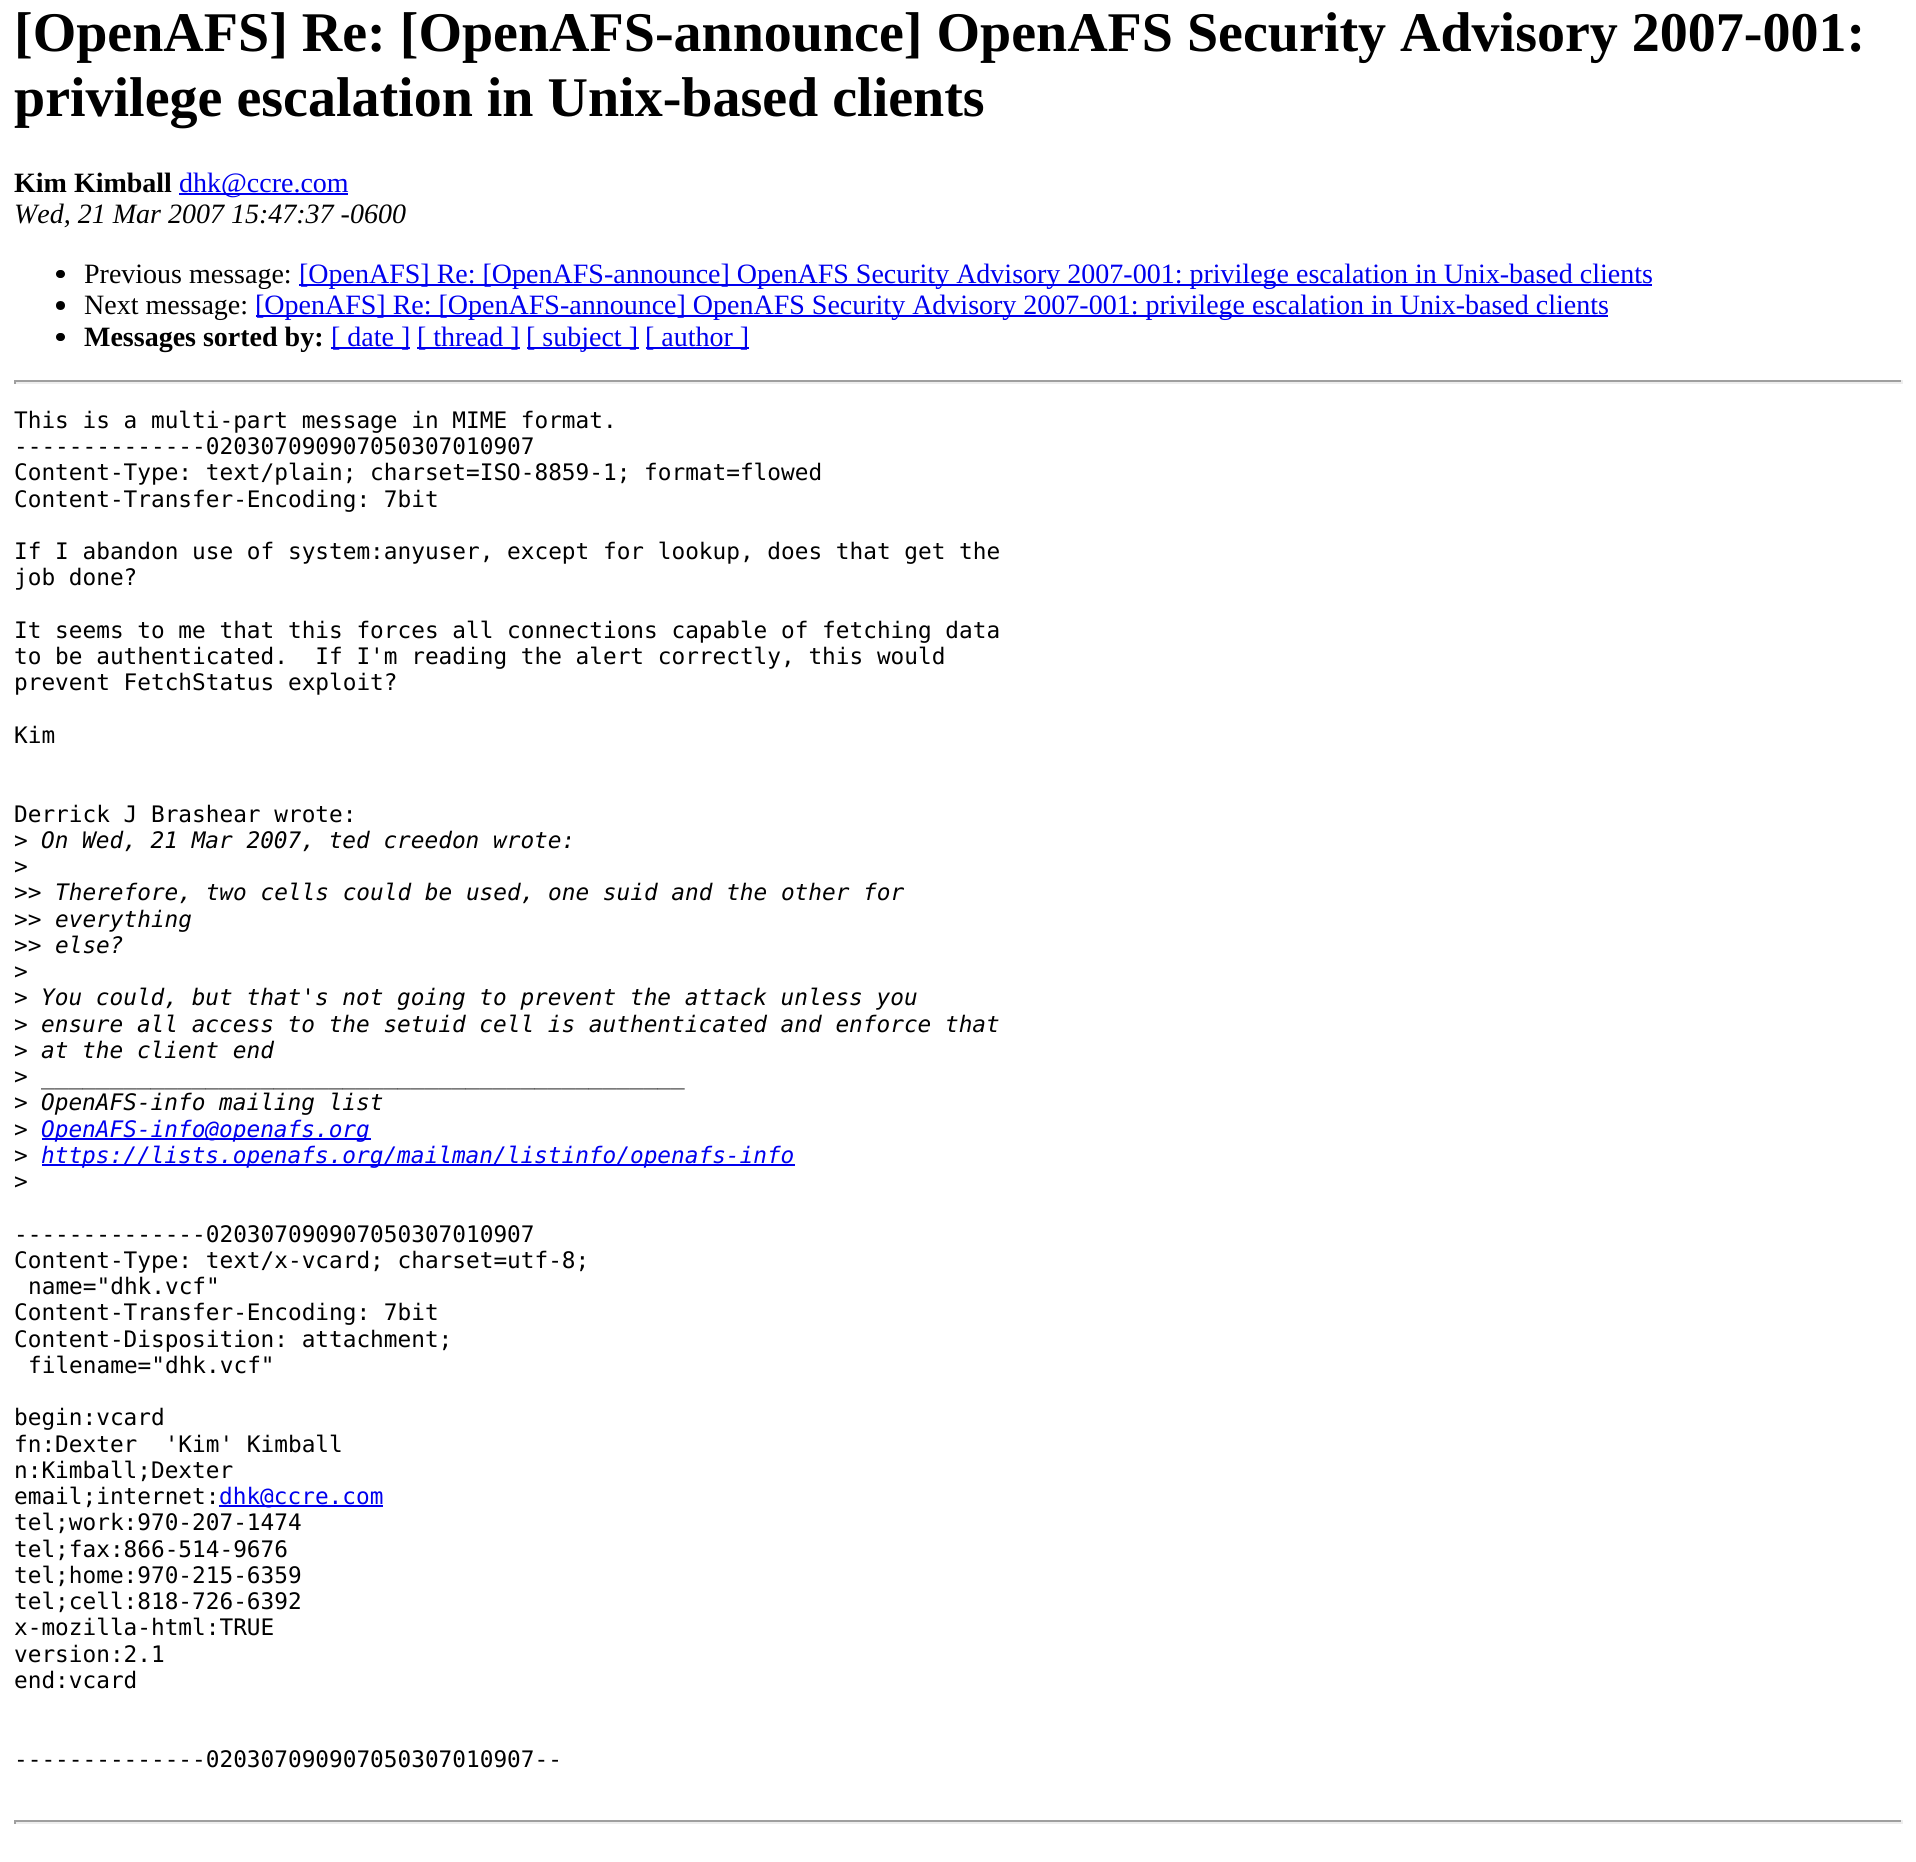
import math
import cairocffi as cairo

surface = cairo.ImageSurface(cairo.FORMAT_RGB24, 1916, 1862)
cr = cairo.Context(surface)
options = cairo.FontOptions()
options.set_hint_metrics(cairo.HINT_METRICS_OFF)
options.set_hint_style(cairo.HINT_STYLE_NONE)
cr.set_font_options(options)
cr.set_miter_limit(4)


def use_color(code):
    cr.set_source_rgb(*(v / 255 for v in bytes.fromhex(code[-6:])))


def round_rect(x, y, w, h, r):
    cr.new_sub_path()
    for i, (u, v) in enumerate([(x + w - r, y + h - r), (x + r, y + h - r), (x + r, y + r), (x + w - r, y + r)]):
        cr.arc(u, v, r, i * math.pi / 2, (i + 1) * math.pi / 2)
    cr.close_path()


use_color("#ffffff")
cr.paint()
cr.select_font_face("Liberation Serif", cairo.FONT_SLANT_NORMAL, cairo.FONT_WEIGHT_BOLD)
cr.set_font_size(56)
use_color("#000000")
cr.move_to(14, 51)
cr.show_text("[OpenAFS] Re: [OpenAFS-announce] OpenAFS Security Advisory 2007-001:")
cr.move_to(14, 116)
cr.show_text("privilege escalation in Unix-based clients")
cr.set_font_size(28)
cr.move_to(14, 192)
cr.show_text("Kim Kimball")
use_color("#0000ee")
cr.rectangle(179, 193, 169, 2)
cr.fill()
cr.select_font_face("Liberation Serif")
cr.move_to(179, 192)
cr.show_text("dhk@ccre.com")
cr.select_font_face("Liberation Serif", cairo.FONT_SLANT_ITALIC)
use_color("#000000")
cr.move_to(14, 223)
cr.show_text("Wed, 21 Mar 2007 15:47:37 -0600")
round_rect(56, 270, 9, 8, 4)
cr.fill()
cr.select_font_face("Liberation Serif")
cr.move_to(84, 283)
cr.show_text("Previous message:")
use_color("#0000ee")
cr.rectangle(299, 284, 1353, 2)
cr.fill()
cr.move_to(299, 283)
cr.show_text("[OpenAFS] Re: [OpenAFS-announce] OpenAFS Security Advisory 2007-001: privilege escalation in Unix-based clients")
use_color("#000000")
cr.new_path()
cr.arc(60.5, 305.5, 4.5, 0, 2 * math.pi)
cr.fill()
cr.move_to(84, 314)
cr.show_text("Next message:")
use_color("#0000ee")
cr.rectangle(256, 315, 1352, 2)
cr.fill()
cr.move_to(255, 314)
cr.show_text("[OpenAFS] Re: [OpenAFS-announce] OpenAFS Security Advisory 2007-001: privilege escalation in Unix-based clients")
use_color("#000000")
round_rect(56, 333, 9, 8, 4)
cr.fill()
cr.select_font_face("Liberation Serif", cairo.FONT_SLANT_NORMAL, cairo.FONT_WEIGHT_BOLD)
cr.move_to(84, 346)
cr.show_text("Messages sorted by:")
use_color("#0000ee")
cr.rectangle(331, 347, 79, 2)
cr.fill()
cr.select_font_face("Liberation Serif")
cr.move_to(331, 346)
cr.show_text("[ date ]")
cr.rectangle(417, 347, 103, 2)
cr.fill()
cr.move_to(417, 346)
cr.show_text("[ thread ]")
cr.rectangle(527, 347, 112, 2)
cr.fill()
cr.move_to(526, 346)
cr.show_text("[ subject ]")
cr.rectangle(646, 347, 103, 2)
cr.fill()
cr.move_to(645, 346)
cr.show_text("[ author ]")
use_color("#9f9f9f")
cr.rectangle(14, 380, 1888, 2)
cr.fill()
use_color("#eeeeee")
cr.rectangle(1901, 380, 2, 4)
cr.fill()
cr.rectangle(14, 382, 1888, 2)
cr.fill()
use_color("#9f9f9f")
cr.rectangle(14, 380, 2, 4)
cr.fill()
cr.select_font_face("DejaVu Sans Mono")
cr.set_font_size(22.75)
use_color("#000000")
cr.move_to(14, 428)
cr.show_text("This is a multi-part message in MIME format.")
cr.move_to(14, 454)
cr.show_text("--------------020307090907050307010907")
cr.move_to(14, 480)
cr.show_text("Content-Type: text/plain; charset=ISO-8859-1; format=flowed")
cr.move_to(14, 507)
cr.show_text("Content-Transfer-Encoding: 7bit")
cr.move_to(14, 559)
cr.show_text("If I abandon use of system:anyuser, except for lookup, does that get the")
cr.move_to(14, 585)
cr.show_text("job done?")
cr.move_to(14, 638)
cr.show_text("It seems to me that this forces all connections capable of fetching data")
cr.move_to(14, 664)
cr.show_text("to be authenticated.  If I'm reading the alert correctly, this would")
cr.move_to(14, 690)
cr.show_text("prevent FetchStatus exploit?")
cr.move_to(14, 743)
cr.show_text("Kim")
cr.move_to(14, 822)
cr.show_text("Derrick J Brashear wrote:")
cr.move_to(14, 848)
cr.show_text(">")
cr.select_font_face("DejaVu Sans Mono", cairo.FONT_SLANT_ITALIC)
cr.move_to(41, 848)
cr.show_text("On Wed, 21 Mar 2007, ted creedon wrote:")
cr.select_font_face("DejaVu Sans Mono")
cr.move_to(14, 874)
cr.show_text(">")
cr.move_to(14, 900)
cr.show_text(">>")
cr.select_font_face("DejaVu Sans Mono", cairo.FONT_SLANT_ITALIC)
cr.move_to(55, 900)
cr.show_text("Therefore, two cells could be used, one suid and the other for")
cr.select_font_face("DejaVu Sans Mono")
cr.move_to(14, 927)
cr.show_text(">>")
cr.select_font_face("DejaVu Sans Mono", cairo.FONT_SLANT_ITALIC)
cr.move_to(55, 927)
cr.show_text("everything")
cr.select_font_face("DejaVu Sans Mono")
cr.move_to(14, 953)
cr.show_text(">>")
cr.select_font_face("DejaVu Sans Mono", cairo.FONT_SLANT_ITALIC)
cr.move_to(55, 953)
cr.show_text("else?")
cr.select_font_face("DejaVu Sans Mono")
cr.move_to(14, 979)
cr.show_text(">")
cr.move_to(14, 1005)
cr.show_text(">")
cr.select_font_face("DejaVu Sans Mono", cairo.FONT_SLANT_ITALIC)
cr.move_to(41, 1005)
cr.show_text("You could, but that's not going to prevent the attack unless you")
cr.select_font_face("DejaVu Sans Mono")
cr.move_to(14, 1032)
cr.show_text(">")
cr.select_font_face("DejaVu Sans Mono", cairo.FONT_SLANT_ITALIC)
cr.move_to(41, 1032)
cr.show_text("ensure all access to the setuid cell is authenticated and enforce that")
cr.select_font_face("DejaVu Sans Mono")
cr.move_to(14, 1058)
cr.show_text(">")
cr.select_font_face("DejaVu Sans Mono", cairo.FONT_SLANT_ITALIC)
cr.move_to(41, 1058)
cr.show_text("at the client end")
cr.select_font_face("DejaVu Sans Mono")
cr.move_to(14, 1084)
cr.show_text(">")
cr.select_font_face("DejaVu Sans Mono", cairo.FONT_SLANT_ITALIC)
cr.move_to(41, 1084)
cr.show_text("_______________________________________________")
cr.select_font_face("DejaVu Sans Mono")
cr.move_to(14, 1110)
cr.show_text(">")
cr.select_font_face("DejaVu Sans Mono", cairo.FONT_SLANT_ITALIC)
cr.move_to(41, 1110)
cr.show_text("OpenAFS-info mailing list")
cr.select_font_face("DejaVu Sans Mono")
cr.move_to(14, 1137)
cr.show_text(">")
use_color("#0000ee")
cr.rectangle(42, 1138, 329, 2)
cr.fill()
cr.select_font_face("DejaVu Sans Mono", cairo.FONT_SLANT_ITALIC)
cr.move_to(41, 1137)
cr.show_text("OpenAFS-info@openafs.org")
cr.select_font_face("DejaVu Sans Mono")
use_color("#000000")
cr.move_to(14, 1163)
cr.show_text(">")
use_color("#0000ee")
cr.rectangle(42, 1164, 753, 2)
cr.fill()
cr.select_font_face("DejaVu Sans Mono", cairo.FONT_SLANT_ITALIC)
cr.move_to(41, 1163)
cr.show_text("https://lists.openafs.org/mailman/listinfo/openafs-info")
cr.select_font_face("DejaVu Sans Mono")
use_color("#000000")
cr.move_to(14, 1189)
cr.show_text(">")
cr.move_to(14, 1242)
cr.show_text("--------------020307090907050307010907")
cr.move_to(14, 1268)
cr.show_text("Content-Type: text/x-vcard; charset=utf-8;")
cr.move_to(28, 1294)
cr.show_text("name=\"dhk.vcf\"")
cr.move_to(14, 1320)
cr.show_text("Content-Transfer-Encoding: 7bit")
cr.move_to(14, 1347)
cr.show_text("Content-Disposition: attachment;")
cr.move_to(28, 1373)
cr.show_text("filename=\"dhk.vcf\"")
cr.move_to(14, 1425)
cr.show_text("begin:vcard")
cr.move_to(14, 1452)
cr.show_text("fn:Dexter  'Kim' Kimball")
cr.move_to(14, 1478)
cr.show_text("n:Kimball;Dexter")
cr.move_to(14, 1504)
cr.show_text("email;internet:")
use_color("#0000ee")
cr.rectangle(219, 1505, 164, 2)
cr.fill()
cr.move_to(219, 1504)
cr.show_text("dhk@ccre.com")
use_color("#000000")
cr.move_to(14, 1530)
cr.show_text("tel;work:970-207-1474")
cr.move_to(14, 1557)
cr.show_text("tel;fax:866-514-9676")
cr.move_to(14, 1583)
cr.show_text("tel;home:970-215-6359")
cr.move_to(14, 1609)
cr.show_text("tel;cell:818-726-6392")
cr.move_to(14, 1635)
cr.show_text("x-mozilla-html:TRUE")
cr.move_to(14, 1662)
cr.show_text("version:2.1")
cr.move_to(14, 1688)
cr.show_text("end:vcard")
cr.move_to(14, 1767)
cr.show_text("--------------020307090907050307010907--")
use_color("#9f9f9f")
cr.rectangle(14, 1820, 1888, 2)
cr.fill()
use_color("#eeeeee")
cr.rectangle(1901, 1820, 2, 4)
cr.fill()
cr.rectangle(14, 1822, 1888, 2)
cr.fill()
use_color("#9f9f9f")
cr.rectangle(14, 1820, 2, 4)
cr.fill()
surface.write_to_png("result.png")
